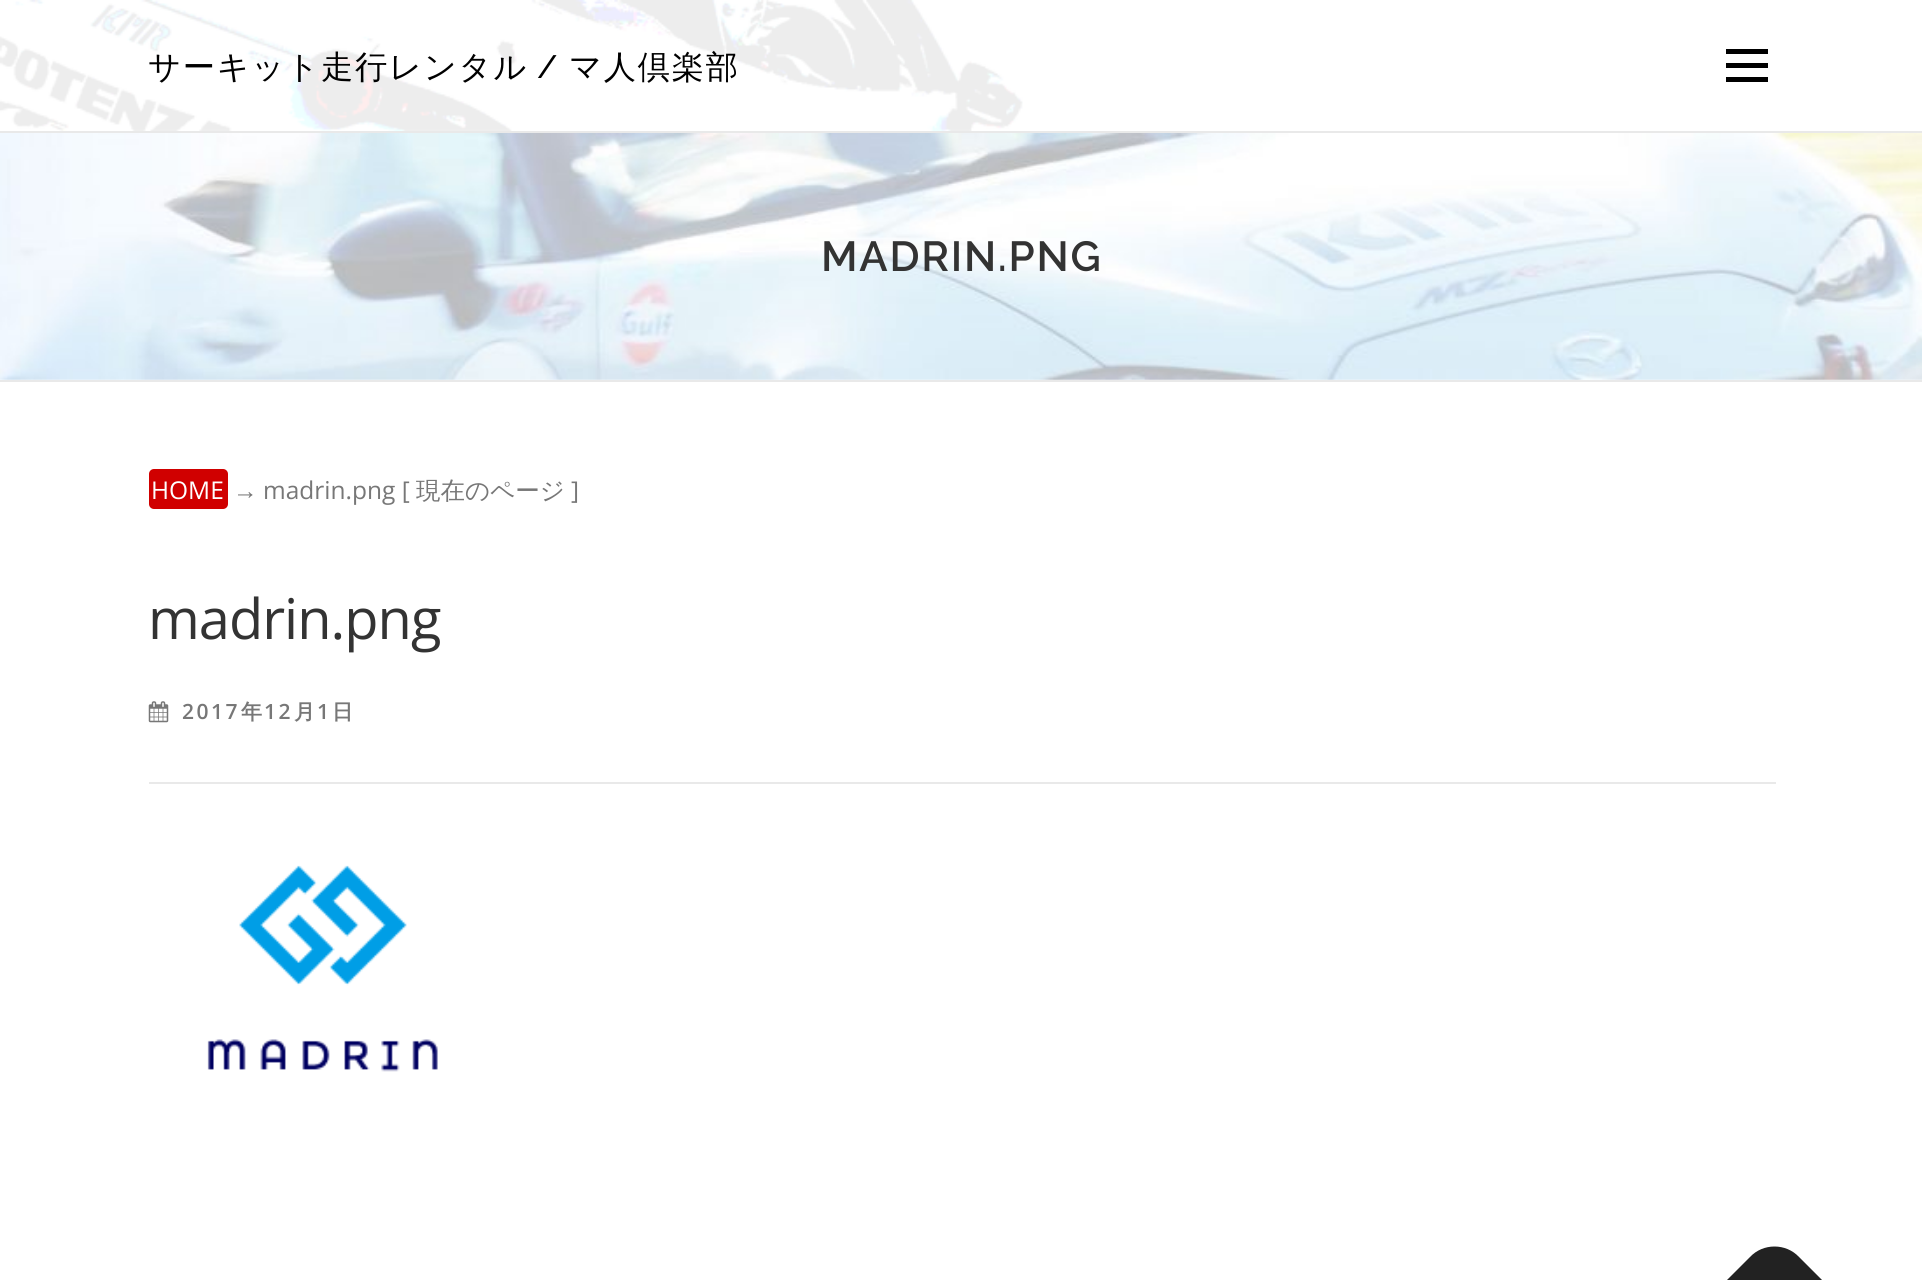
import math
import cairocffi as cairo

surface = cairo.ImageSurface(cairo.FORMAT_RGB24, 1922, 1280)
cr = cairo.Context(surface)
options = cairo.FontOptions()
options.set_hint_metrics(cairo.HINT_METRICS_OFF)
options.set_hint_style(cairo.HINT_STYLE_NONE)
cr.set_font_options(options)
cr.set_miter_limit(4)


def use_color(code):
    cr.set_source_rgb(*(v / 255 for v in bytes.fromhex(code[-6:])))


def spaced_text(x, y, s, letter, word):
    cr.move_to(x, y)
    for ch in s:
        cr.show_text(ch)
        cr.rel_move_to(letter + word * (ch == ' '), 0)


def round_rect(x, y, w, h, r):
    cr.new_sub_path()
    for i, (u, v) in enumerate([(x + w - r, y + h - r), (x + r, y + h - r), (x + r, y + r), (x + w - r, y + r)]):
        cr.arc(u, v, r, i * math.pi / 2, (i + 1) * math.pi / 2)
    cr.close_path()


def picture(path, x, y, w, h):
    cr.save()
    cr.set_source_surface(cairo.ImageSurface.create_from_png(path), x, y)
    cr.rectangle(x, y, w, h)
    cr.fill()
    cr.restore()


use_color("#ffffff")
cr.paint()
picture("img1.png", 0, 0, 1023, 131)
cr.select_font_face("WenQuanYi Zen Hei Medium")
cr.set_font_size(32.25)
use_color("#000000")
spaced_text(148, 78, "サーキット走行レンタル", 1.75, 0)
cr.select_font_face("Raleway Medium")
spaced_text(537, 78, "/", 1.75, 0)
cr.select_font_face("WenQuanYi Zen Hei Medium")
spaced_text(569, 78, "マ人倶楽部", 1.75, 0)
cr.rectangle(1726, 63, 42, 5)
cr.fill()
cr.rectangle(1726, 49, 42, 5)
cr.fill()
cr.rectangle(1726, 77, 42, 5)
cr.fill()
picture("img2.png", 0, 133, 1922, 247)
use_color("#e9e9e9")
cr.rectangle(0, 131, 1922, 2)
cr.fill()
cr.rectangle(0, 380, 1922, 2)
cr.fill()
cr.select_font_face("Raleway SemiBold")
cr.set_font_size(42)
use_color("#333333")
spaced_text(821, 271, "MADRIN.PNG", 1.75, 0)
use_color("#d00000")
round_rect(149, 469, 79, 40, 5)
cr.fill()
cr.select_font_face("Open Sans")
cr.set_font_size(24.5)
use_color("#ffffff")
cr.move_to(151, 499)
cr.show_text("HOME")
cr.select_font_face("Liberation Sans")
use_color("#777777")
cr.move_to(233, 499)
cr.show_text("→")
cr.select_font_face("Open Sans")
cr.move_to(263, 499)
cr.show_text("madrin.png [")
cr.select_font_face("WenQuanYi Zen Hei Medium")
cr.move_to(416, 499)
cr.show_text("現在のページ")
cr.select_font_face("Open Sans")
cr.move_to(571, 499)
cr.show_text("]")
cr.set_font_size(56)
use_color("#333333")
spaced_text(148, 639, "madrin.png", -1, 0)
use_color("#e9e9e9")
cr.rectangle(149, 782, 1627, 2)
cr.fill()
picture("img3.png", 148, 701, 21, 22)
cr.select_font_face("Open Sans SemiBold")
cr.set_font_size(21)
use_color("#777777")
spaced_text(182, 719, "2017", 2.5, 0)
cr.select_font_face("WenQuanYi Zen Hei", cairo.FONT_SLANT_NORMAL, cairo.FONT_WEIGHT_BOLD)
spaced_text(241, 719, "年", 2.5, 0)
cr.select_font_face("Open Sans SemiBold")
spaced_text(264, 719, "12", 2.5, 0)
cr.select_font_face("WenQuanYi Zen Hei", cairo.FONT_SLANT_NORMAL, cairo.FONT_WEIGHT_BOLD)
spaced_text(294, 719, "月", 2.5, 0)
cr.select_font_face("Open Sans SemiBold")
spaced_text(317, 719, "1", 2.5, 0)
cr.select_font_face("WenQuanYi Zen Hei", cairo.FONT_SLANT_NORMAL, cairo.FONT_WEIGHT_BOLD)
spaced_text(332, 719, "日", 2.5, 0)
picture("img4.png", 207, 865, 231, 207)
use_color("#222222")
cr.new_path()
cr.move_to(1713, 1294)
cr.line_to(1750, 1257)
cr.curve_to(1763, 1243, 1786, 1243, 1799, 1257)
cr.line_to(1836, 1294)
cr.line_to(1774, 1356)
cr.close_path()
cr.fill()
surface.write_to_png("result.png")
